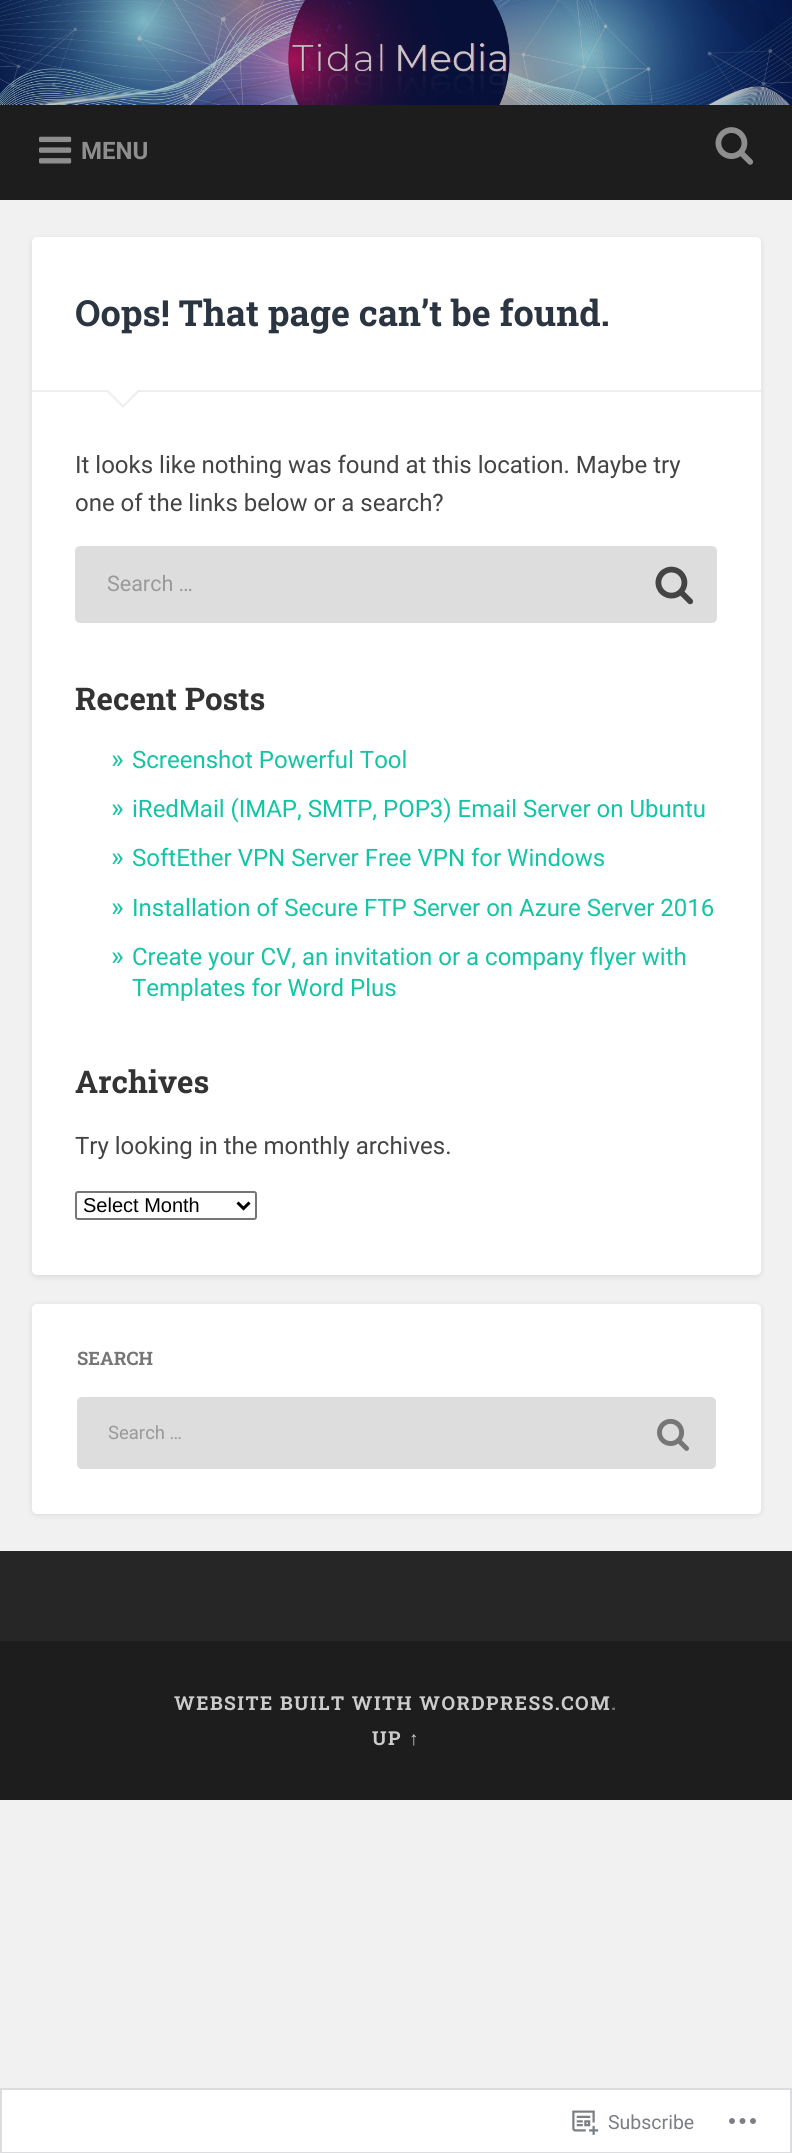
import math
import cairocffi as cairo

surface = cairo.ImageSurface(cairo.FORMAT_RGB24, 792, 2153)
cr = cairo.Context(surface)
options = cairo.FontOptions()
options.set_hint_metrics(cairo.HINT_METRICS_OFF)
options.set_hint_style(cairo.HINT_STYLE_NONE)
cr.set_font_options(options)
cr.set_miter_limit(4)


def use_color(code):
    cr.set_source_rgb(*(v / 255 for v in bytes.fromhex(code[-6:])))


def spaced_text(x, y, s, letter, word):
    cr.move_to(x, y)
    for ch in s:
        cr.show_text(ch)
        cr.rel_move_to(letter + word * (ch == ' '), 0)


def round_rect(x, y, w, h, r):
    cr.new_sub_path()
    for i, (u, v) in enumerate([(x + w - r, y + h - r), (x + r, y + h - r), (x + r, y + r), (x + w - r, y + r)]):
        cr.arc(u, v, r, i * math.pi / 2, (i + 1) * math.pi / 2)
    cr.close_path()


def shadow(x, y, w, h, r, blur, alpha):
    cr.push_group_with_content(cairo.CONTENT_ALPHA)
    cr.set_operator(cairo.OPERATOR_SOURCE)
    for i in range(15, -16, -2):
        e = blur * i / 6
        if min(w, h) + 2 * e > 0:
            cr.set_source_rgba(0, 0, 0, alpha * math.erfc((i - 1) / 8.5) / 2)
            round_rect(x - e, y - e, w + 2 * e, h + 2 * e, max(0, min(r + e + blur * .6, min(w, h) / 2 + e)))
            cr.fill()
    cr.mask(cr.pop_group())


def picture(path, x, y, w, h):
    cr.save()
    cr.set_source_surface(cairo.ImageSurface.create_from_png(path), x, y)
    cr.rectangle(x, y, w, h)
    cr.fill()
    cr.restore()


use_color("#f1f1f1")
cr.paint()
picture("img1.png", 0, 0, 792, 105)
use_color("#1d1d1d")
cr.rectangle(0, 105, 792, 95)
cr.fill()
picture("img2.png", 39, 136, 33, 28)
cr.select_font_face("Roboto", cairo.FONT_SLANT_NORMAL, cairo.FONT_WEIGHT_BOLD)
cr.set_font_size(24)
use_color("#8e8e8e")
cr.move_to(81, 159)
cr.show_text("MENU")
picture("img3.png", 715, 127, 38, 38)
use_color("#000000")
shadow(32, 239, 729, 1038, 5, 3, 0.1)
use_color("#ffffff")
round_rect(32, 237, 729, 1038, 5)
cr.fill()
use_color("#eeeeee")
cr.rectangle(32, 390, 729, 2)
cr.fill()
cr.select_font_face("Roboto Slab", cairo.FONT_SLANT_NORMAL, cairo.FONT_WEIGHT_BOLD)
cr.set_font_size(36)
use_color("#2b3542")
cr.move_to(75, 326)
cr.show_text("Oops! That page can’t be found.")
use_color("#eeeeee")
cr.new_path()
cr.move_to(105, 390)
cr.line_to(141, 390)
cr.line_to(123, 408)
cr.close_path()
cr.fill()
use_color("#ffffff")
cr.new_path()
cr.move_to(106.5, 388.5)
cr.line_to(139.5, 388.5)
cr.line_to(123, 405)
cr.close_path()
cr.fill()
cr.select_font_face("Roboto")
cr.set_font_size(24)
use_color("#444444")
cr.move_to(75, 473)
cr.show_text("It looks like nothing was found at this location. Maybe try")
cr.move_to(75, 511)
cr.show_text("one of the links below or a search?")
use_color("#dddddd")
round_rect(75, 546, 642, 77, 5)
cr.fill()
cr.set_font_size(21.5)
use_color("#999999")
cr.move_to(107, 591)
cr.show_text("Search …")
picture("img4.png", 655, 566, 39, 39)
cr.select_font_face("Roboto Slab", cairo.FONT_SLANT_NORMAL, cairo.FONT_WEIGHT_BOLD)
cr.set_font_size(31.25)
use_color("#333333")
cr.move_to(75, 710)
cr.show_text("Recent Posts")
cr.select_font_face("Roboto")
cr.set_font_size(27)
use_color("#13c4a5")
cr.move_to(111, 768)
cr.show_text("»")
cr.set_font_size(24)
cr.move_to(132, 768)
cr.show_text("Screenshot Powerful Tool")
cr.set_font_size(27)
cr.move_to(111, 817)
cr.show_text("»")
cr.set_font_size(24)
cr.move_to(132, 817)
cr.show_text("iRedMail (IMAP, SMTP, POP3) Email Server on Ubuntu")
cr.set_font_size(27)
cr.move_to(111, 866)
cr.show_text("»")
cr.set_font_size(24)
cr.move_to(132, 866)
cr.show_text("SoftEther VPN Server Free VPN for Windows")
cr.set_font_size(27)
cr.move_to(111, 916)
cr.show_text("»")
cr.set_font_size(24)
cr.move_to(132, 916)
cr.show_text("Installation of Secure FTP Server on Azure Server 2016")
cr.set_font_size(27)
cr.move_to(111, 965)
cr.show_text("»")
cr.set_font_size(24)
cr.move_to(132, 965)
cr.show_text("Create your CV, an invitation or a company flyer with")
cr.move_to(132, 996)
cr.show_text("Templates for Word Plus")
cr.select_font_face("Roboto Slab", cairo.FONT_SLANT_NORMAL, cairo.FONT_WEIGHT_BOLD)
cr.set_font_size(31.25)
use_color("#333333")
cr.move_to(75, 1093)
cr.show_text("Archives")
cr.select_font_face("Roboto")
cr.set_font_size(24)
use_color("#444444")
cr.move_to(75, 1154)
cr.show_text("Try looking in the monthly archives.")
round_rect(76, 1192, 180, 27, 2)
use_color("#767676")
cr.stroke()
cr.new_path()
cr.move_to(237.5, 1202.5)
cr.line_to(243.5, 1208.5)
cr.line_to(249.5, 1202.5)
use_color("#000000")
cr.set_line_width(3)
cr.stroke()
cr.select_font_face("Liberation Sans")
cr.set_font_size(20)
cr.move_to(83, 1212)
cr.show_text("Select Month")
use_color("#000000")
shadow(32, 1305, 729, 210, 5, 3, 0.1)
use_color("#ffffff")
round_rect(32, 1304, 729, 210, 5)
cr.fill()
cr.select_font_face("Roboto Slab", cairo.FONT_SLANT_NORMAL, cairo.FONT_WEIGHT_BOLD)
cr.set_font_size(18.5)
use_color("#767676")
cr.move_to(77, 1365)
cr.show_text("SEARCH")
use_color("#dddddd")
round_rect(77, 1397, 639, 72, 5)
cr.fill()
cr.select_font_face("Roboto")
use_color("#999999")
cr.move_to(108, 1439)
cr.show_text("Search …")
picture("img5.png", 657, 1418, 32, 33)
use_color("#262626")
cr.rectangle(0, 1551, 792, 90)
cr.fill()
use_color("#1d1d1d")
cr.rectangle(0, 1641, 792, 159)
cr.fill()
cr.select_font_face("Roboto Slab", cairo.FONT_SLANT_NORMAL, cairo.FONT_WEIGHT_BOLD)
cr.set_font_size(19.2)
use_color("#cccccc")
spaced_text(174, 1710, "WEBSITE BUILT WITH WORDPRESS.COM", 1.5, 0)
use_color("#767676")
spaced_text(611, 1710, ".", 1.5, 0)
use_color("#cccccc")
spaced_text(372, 1745, "UP", 1.5, 0)
cr.select_font_face("Liberation Sans", cairo.FONT_SLANT_NORMAL, cairo.FONT_WEIGHT_BOLD)
spaced_text(409, 1745, "↑", 1.5, 0)
use_color("#ffffff")
cr.rectangle(1, 2089, 790, 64)
cr.fill_preserve()
use_color("#dcdcde")
cr.set_line_width(2)
cr.stroke()
picture("img6.png", 572, 2110, 27, 25)
cr.select_font_face("Roboto")
cr.set_font_size(19.5)
use_color("#7a7e84")
cr.move_to(608, 2129)
cr.show_text("Subscribe")
picture("img7.png", 729, 2118, 27, 6)
surface.write_to_png("result.png")
